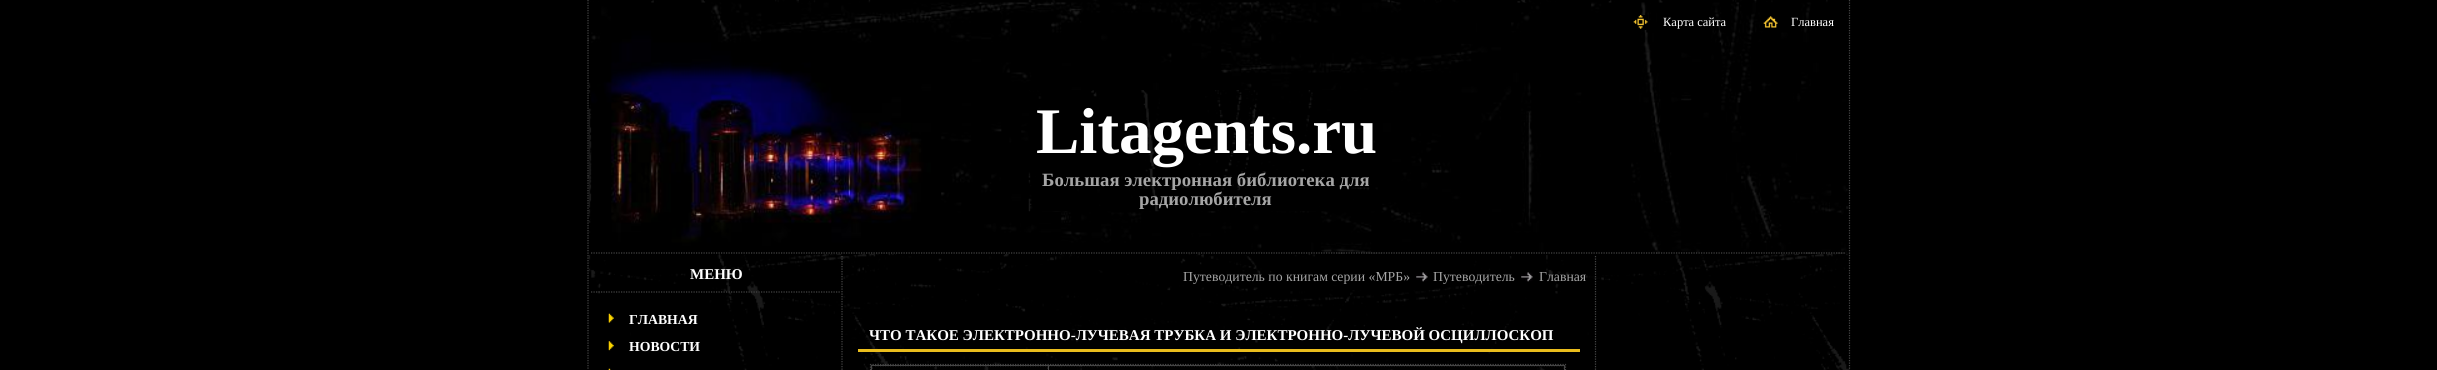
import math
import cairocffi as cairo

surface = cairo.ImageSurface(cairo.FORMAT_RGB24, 2437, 370)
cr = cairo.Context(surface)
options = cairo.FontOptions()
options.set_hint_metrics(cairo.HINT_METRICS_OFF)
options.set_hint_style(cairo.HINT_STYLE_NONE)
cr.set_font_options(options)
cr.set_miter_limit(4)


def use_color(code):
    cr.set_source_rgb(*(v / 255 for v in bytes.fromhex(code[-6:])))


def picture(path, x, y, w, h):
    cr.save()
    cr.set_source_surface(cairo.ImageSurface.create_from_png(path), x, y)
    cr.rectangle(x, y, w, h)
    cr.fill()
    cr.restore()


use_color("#000000")
cr.paint()
picture("img1.png", 587, 0, 1263, 370)
cr.new_path()
cr.move_to(1849.5, 0)
cr.line_to(1849.5, 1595)
use_color("#454545")
cr.set_line_width(1.2)
cr.set_dash([1.25, 1.25])
cr.stroke()
cr.new_path()
cr.move_to(588, 0)
cr.line_to(588, 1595)
cr.stroke()
picture("img2.png", 591, 2, 1256, 252)
cr.new_path()
cr.move_to(591, 253)
cr.line_to(1846, 253)
cr.stroke()
picture("img3.png", 1633, 15, 15, 15)
cr.select_font_face("Liberation Serif")
cr.set_font_size(12.5)
use_color("#ffffff")
cr.move_to(1663, 26)
cr.show_text("Карта сайта")
picture("img4.png", 1763, 16, 15, 12)
cr.move_to(1791, 26)
cr.show_text("Главная")
picture("img5.png", 1028, 90, 355, 122)
picture("img6.png", 1036, 92, 339, 77)
cr.select_font_face("Liberation Serif", cairo.FONT_SLANT_NORMAL, cairo.FONT_WEIGHT_BOLD)
cr.set_font_size(65)
cr.move_to(1036, 153)
cr.show_text("Litagents.ru")
cr.set_font_size(18.75)
use_color("#a5a5a5")
cr.move_to(1042, 186)
cr.show_text("Большая электронная библиотека для")
cr.move_to(1139, 205)
cr.show_text("радиолюбителя")
cr.new_path()
cr.move_to(842, 256)
cr.line_to(842, 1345)
use_color("#454545")
cr.stroke()
cr.new_path()
cr.move_to(591, 292)
cr.line_to(841, 292)
cr.stroke()
cr.set_font_size(15)
use_color("#ffffff")
cr.move_to(690, 279)
cr.show_text("МЕНЮ")
picture("img7.png", 608, 313, 6, 10)
cr.set_font_size(13.75)
cr.move_to(629, 324)
cr.show_text("ГЛАВНАЯ")
picture("img8.png", 608, 341, 6, 10)
cr.move_to(629, 351)
cr.show_text("НОВОСТИ")
picture("img9.png", 608, 368, 3, 2)
cr.select_font_face("Liberation Serif")
use_color("#a5a5a5")
cr.move_to(1183, 281)
cr.show_text("Путеводитель по книгам серии «МРБ»")
picture("img10.png", 1416, 272, 12, 10)
cr.move_to(1433, 281)
cr.show_text("Путеводитель")
picture("img10.png", 1521, 272, 12, 10)
cr.move_to(1539, 281)
cr.show_text("Главная")
use_color("#eabd1d")
cr.rectangle(858, 349, 722, 3)
cr.fill()
cr.select_font_face("Liberation Serif", cairo.FONT_SLANT_NORMAL, cairo.FONT_WEIGHT_BOLD)
cr.set_font_size(15)
use_color("#ffffff")
cr.move_to(869, 340)
cr.show_text("ЧТО ТАКОЕ ЭЛЕКТРОННО-ЛУЧЕВАЯ ТРУБКА И ЭЛЕКТРОННО-ЛУЧЕВОЙ ОСЦИЛЛОСКОП")
cr.new_path()
cr.move_to(870, 364.5)
cr.line_to(1566, 364.5)
use_color("#454545")
cr.stroke()
cr.new_path()
cr.move_to(1565.5, 364)
cr.line_to(1565.5, 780)
cr.stroke()
cr.new_path()
cr.move_to(870.5, 364)
cr.line_to(870.5, 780)
cr.stroke()
picture("img11.png", 872, 366, 692, 4)
cr.rectangle(1048, 365, 517, 1)
cr.fill()
cr.rectangle(1048, 365, 1, 5)
cr.fill()
cr.rectangle(871, 365, 178, 1)
cr.fill()
cr.rectangle(871, 365, 1, 5)
cr.fill()
cr.rectangle(1564, 365, 1, 5)
cr.fill()
cr.new_path()
cr.move_to(1595.5, 256)
cr.line_to(1595.5, 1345)
cr.stroke()
surface.write_to_png("result.png")
